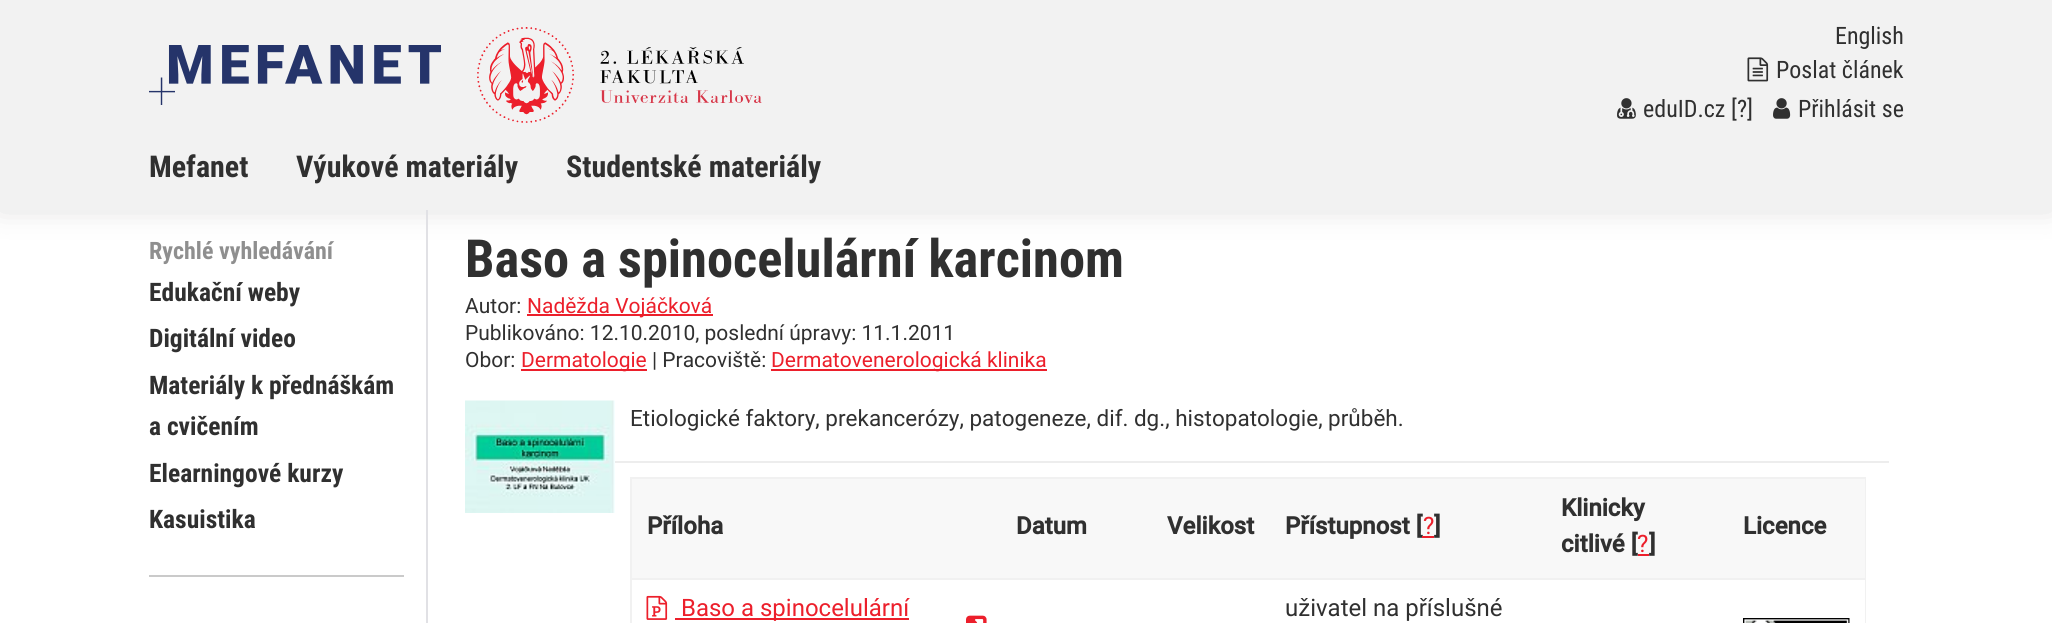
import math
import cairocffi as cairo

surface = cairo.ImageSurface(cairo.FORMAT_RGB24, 2052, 623)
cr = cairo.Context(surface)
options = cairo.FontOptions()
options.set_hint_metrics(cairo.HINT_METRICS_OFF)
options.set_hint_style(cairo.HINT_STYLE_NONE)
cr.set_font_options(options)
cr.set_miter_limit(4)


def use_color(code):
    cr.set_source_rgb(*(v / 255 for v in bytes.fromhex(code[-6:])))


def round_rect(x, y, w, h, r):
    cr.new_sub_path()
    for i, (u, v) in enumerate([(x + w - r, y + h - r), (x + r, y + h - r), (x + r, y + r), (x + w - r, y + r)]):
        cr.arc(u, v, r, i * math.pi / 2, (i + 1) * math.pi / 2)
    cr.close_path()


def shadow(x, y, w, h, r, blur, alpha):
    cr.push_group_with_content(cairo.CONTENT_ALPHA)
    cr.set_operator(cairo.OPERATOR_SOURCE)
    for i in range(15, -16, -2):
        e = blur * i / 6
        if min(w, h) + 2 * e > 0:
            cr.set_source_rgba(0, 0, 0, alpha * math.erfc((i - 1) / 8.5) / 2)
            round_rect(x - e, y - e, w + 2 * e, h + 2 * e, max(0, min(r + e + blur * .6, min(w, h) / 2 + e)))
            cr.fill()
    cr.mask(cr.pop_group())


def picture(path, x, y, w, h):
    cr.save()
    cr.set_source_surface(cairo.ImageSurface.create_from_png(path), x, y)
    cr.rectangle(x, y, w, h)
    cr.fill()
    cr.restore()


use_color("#ffffff")
cr.paint()
use_color("#373535")
shadow(0, -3, 2052, 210, 0, 15, 0.2)
use_color("#f2f2f2")
cr.rectangle(0, 0, 2052, 210)
cr.fill()
picture("img1.png", 149, 45, 292, 60)
picture("img2.png", 477, 27, 285, 96)
cr.select_font_face("Roboto Condensed")
cr.set_font_size(24)
use_color("#303030")
cr.move_to(1835, 44)
cr.show_text("English")
picture("img3.png", 1747, 57, 22, 25)
cr.move_to(1776, 78)
cr.show_text("Poslat článek")
picture("img4.png", 1617, 98, 19, 21)
cr.move_to(1643, 117)
cr.show_text("eduID.cz [?]")
picture("img5.png", 1773, 98, 18, 21)
cr.move_to(1798, 117)
cr.show_text("Přihlásit se")
cr.select_font_face("Roboto Condensed", cairo.FONT_SLANT_NORMAL, cairo.FONT_WEIGHT_BOLD)
cr.set_font_size(30)
cr.move_to(149, 177)
cr.show_text("Mefanet")
cr.move_to(296, 177)
cr.show_text("Výukové materiály")
cr.move_to(566, 177)
cr.show_text("Studentské materiály")
cr.set_font_size(24)
use_color("#8f8f8f")
cr.move_to(149, 259)
cr.show_text("Rychlé vyhledávání")
cr.set_font_size(25.5)
use_color("#303030")
cr.move_to(149, 301)
cr.show_text("Edukační weby")
cr.move_to(149, 347)
cr.show_text("Digitální video")
cr.move_to(149, 394)
cr.show_text("Materiály k přednáškám")
cr.move_to(149, 435)
cr.show_text("a cvičením")
cr.move_to(149, 482)
cr.show_text("Elearningové kurzy")
cr.move_to(149, 528)
cr.show_text("Kasuistika")
use_color("#cacaca")
cr.rectangle(149, 575, 255, 2)
cr.fill()
use_color("#e1e1e5")
cr.rectangle(426, 210, 2, 413)
cr.fill()
cr.set_font_size(52.5)
use_color("#303030")
cr.move_to(465, 277)
cr.show_text("Baso a spinocelulární karcinom")
cr.select_font_face("Roboto")
cr.set_font_size(21)
cr.move_to(465, 313)
cr.show_text("Autor:")
use_color("#ec1f2b")
cr.rectangle(527, 314, 186, 2)
cr.fill()
cr.move_to(527, 313)
cr.show_text("Naděžda Vojáčková")
use_color("#303030")
cr.move_to(465, 340)
cr.show_text("Publikováno: 12.10.2010, poslední úpravy: 11.1.2011")
cr.move_to(465, 367)
cr.show_text("Obor:")
use_color("#ec1f2b")
cr.rectangle(521, 369, 126, 2)
cr.fill()
cr.move_to(521, 367)
cr.show_text("Dermatologie")
use_color("#303030")
cr.move_to(652, 367)
cr.show_text("| Pracoviště:")
use_color("#ec1f2b")
cr.rectangle(771, 369, 276, 2)
cr.fill()
cr.move_to(771, 367)
cr.show_text("Dermatovenerologická klinika")
use_color("#ededed")
cr.rectangle(615, 461, 1274, 2)
cr.fill()
picture("img6.png", 465, 400, 150, 113)
cr.set_font_size(22.5)
use_color("#303030")
cr.move_to(630, 426)
cr.show_text("Etiologické faktory, prekancerózy, patogeneze, dif. dg., histopatologie, průběh.")
use_color("#f8f8f8")
cr.rectangle(632, 479, 1233, 99)
cr.fill()
use_color("#f1f1f1")
cr.rectangle(630, 477, 1236, 2)
cr.fill()
cr.rectangle(630, 578, 1236, 2)
cr.fill()
cr.rectangle(1865, 578, 1, 45)
cr.fill()
cr.rectangle(1865, 477, 1, 102)
cr.fill()
cr.rectangle(630, 578, 2, 45)
cr.fill()
cr.rectangle(630, 477, 2, 102)
cr.fill()
cr.select_font_face("Roboto", cairo.FONT_SLANT_NORMAL, cairo.FONT_WEIGHT_BOLD)
cr.set_font_size(24)
use_color("#303030")
cr.move_to(647, 534)
cr.show_text("Příloha")
cr.move_to(1016, 534)
cr.show_text("Datum")
cr.move_to(1167, 534)
cr.show_text("Velikost")
cr.move_to(1285, 534)
cr.show_text("Přístupnost [")
cr.select_font_face("Roboto")
use_color("#ec1f2b")
cr.move_to(1423, 534)
cr.show_text("?")
cr.rectangle(1422, 536, 12, 2)
cr.fill()
cr.select_font_face("Roboto", cairo.FONT_SLANT_NORMAL, cairo.FONT_WEIGHT_BOLD)
use_color("#303030")
cr.move_to(1434, 534)
cr.show_text("]")
cr.move_to(1561, 516)
cr.show_text("Klinicky")
cr.move_to(1561, 552)
cr.show_text("citlivé [")
cr.select_font_face("Roboto")
use_color("#ec1f2b")
cr.move_to(1637, 552)
cr.show_text("?")
cr.rectangle(1638, 554, 11, 2)
cr.fill()
cr.select_font_face("Roboto", cairo.FONT_SLANT_NORMAL, cairo.FONT_WEIGHT_BOLD)
use_color("#303030")
cr.move_to(1649, 552)
cr.show_text("]")
cr.move_to(1743, 534)
cr.show_text("Licence")
picture("img7.png", 646, 595, 22, 25)
use_color("#ec1f2b")
cr.rectangle(675, 618, 234, 2)
cr.fill()
cr.select_font_face("Roboto")
cr.move_to(681, 616)
cr.show_text("Baso a spinocelulární")
picture("img8.png", 966, 615, 21, 8)
use_color("#303030")
cr.move_to(1285, 616)
cr.show_text("uživatel na příslušné")
picture("img9.png", 1743, 618, 107, 5)
surface.write_to_png("result.png")
